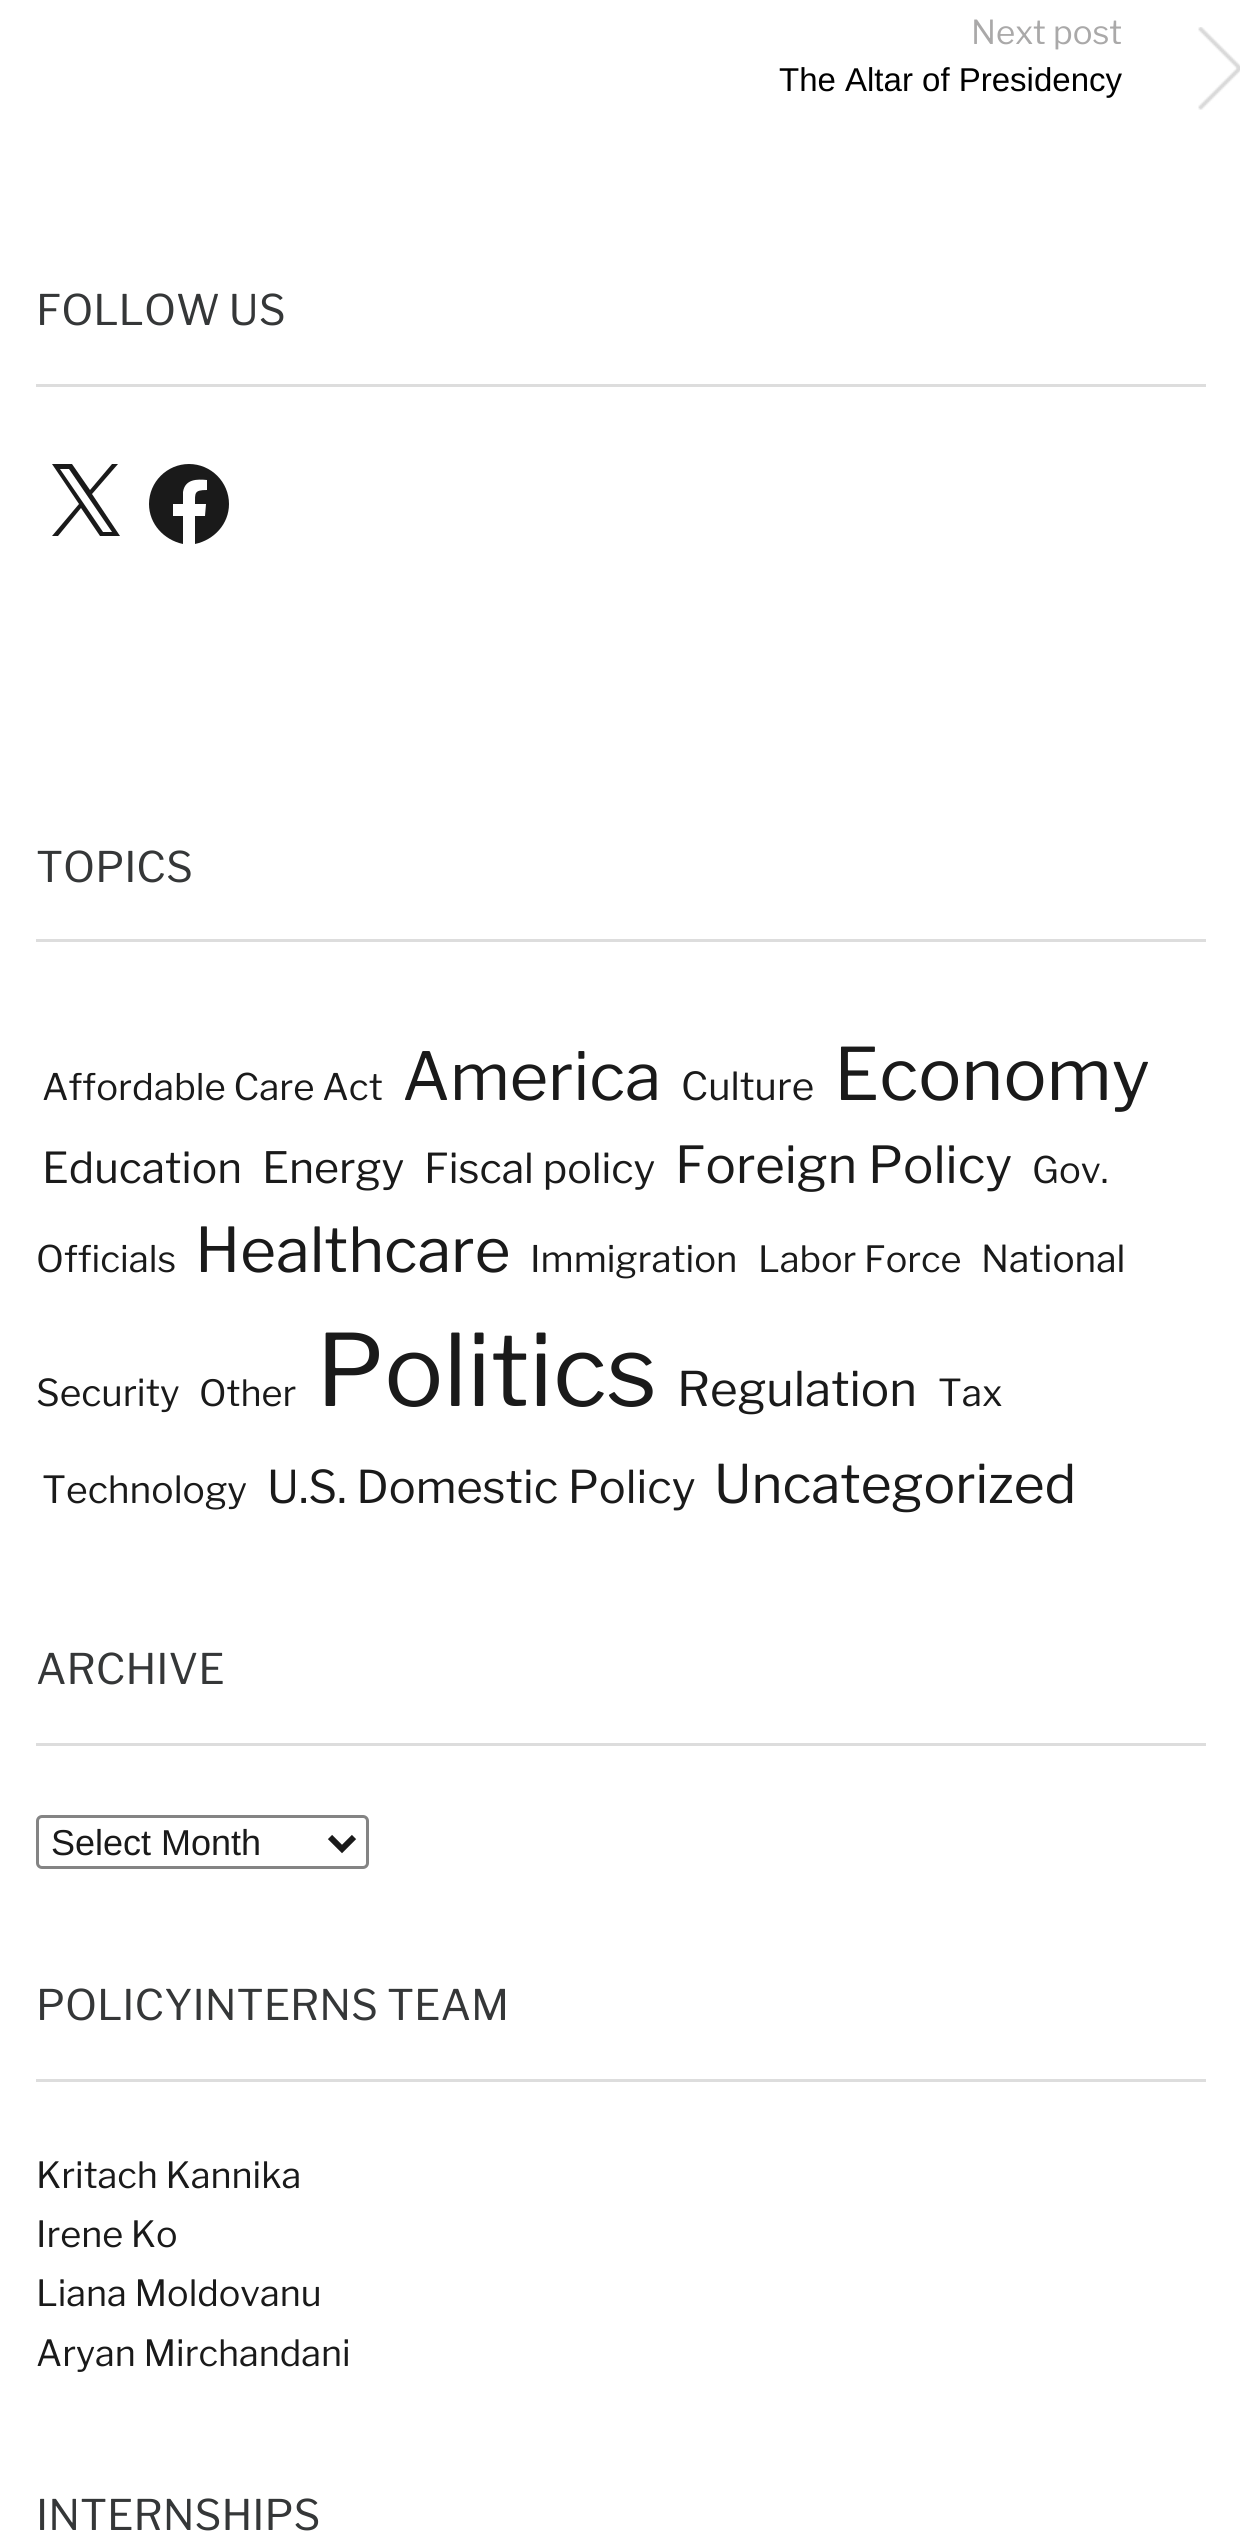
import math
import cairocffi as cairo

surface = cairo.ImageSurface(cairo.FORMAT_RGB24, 1240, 2541)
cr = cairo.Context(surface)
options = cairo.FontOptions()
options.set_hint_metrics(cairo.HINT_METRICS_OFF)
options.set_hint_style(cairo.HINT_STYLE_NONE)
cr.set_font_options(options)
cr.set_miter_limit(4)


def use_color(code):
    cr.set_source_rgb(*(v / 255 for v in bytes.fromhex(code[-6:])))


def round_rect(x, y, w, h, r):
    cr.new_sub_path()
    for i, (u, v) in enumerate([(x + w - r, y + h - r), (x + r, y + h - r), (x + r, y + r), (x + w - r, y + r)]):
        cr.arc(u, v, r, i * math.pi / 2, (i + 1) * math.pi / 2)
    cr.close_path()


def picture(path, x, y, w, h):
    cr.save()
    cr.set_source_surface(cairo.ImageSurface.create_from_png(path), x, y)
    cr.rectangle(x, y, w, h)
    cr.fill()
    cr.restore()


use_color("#ffffff")
cr.paint()
picture("img1.png", 1198, 27, 42, 83)
cr.select_font_face("Libre Franklin Thin")
cr.set_font_size(33)
use_color("#aaa9a9")
cr.move_to(971, 44)
cr.show_text("Next post")
cr.select_font_face("Liberation Sans")
use_color("#000000")
cr.move_to(779, 91)
cr.show_text("The Altar of Presidency")
use_color("#dddddd")
cr.rectangle(36, 384, 1170, 3)
cr.fill()
cr.select_font_face("Libre Franklin Thin")
cr.set_font_size(42)
use_color("#353738")
cr.move_to(36, 325)
cr.show_text("FOLLOW US")
use_color("#1a1a1a")
cr.new_path()
cr.move_to(92, 494)
cr.line_to(118, 464)
cr.line_to(112, 464)
cr.line_to(90, 490)
cr.line_to(72, 464)
cr.line_to(52, 464)
cr.line_to(79, 504)
cr.line_to(52, 536)
cr.line_to(58, 536)
cr.line_to(81, 508)
cr.line_to(100, 536)
cr.line_to(120, 536)
cr.close_path()
cr.move_to(84, 504)
cr.line_to(60, 469)
cr.line_to(69, 469)
cr.line_to(112, 532)
cr.line_to(103, 532)
cr.close_path()
cr.fill()
cr.new_path()
cr.move_to(189, 464)
cr.curve_to(167, 464, 149, 482, 149, 504)
cr.curve_to(149, 524, 164, 540, 183, 544)
cr.line_to(183, 516)
cr.line_to(173, 516)
cr.line_to(173, 504)
cr.line_to(183, 504)
cr.line_to(183, 492)
cr.curve_to(185, 479, 197, 479, 207, 480)
cr.line_to(207, 490)
cr.curve_to(194, 490, 195, 493, 195, 504)
cr.line_to(206, 504)
cr.line_to(205, 516)
cr.line_to(195, 516)
cr.line_to(195, 544)
cr.curve_to(214, 540, 229, 524, 229, 504)
cr.curve_to(229, 482, 211, 464, 189, 464)
cr.close_path()
cr.fill()
use_color("#dddddd")
cr.rectangle(36, 939, 1170, 3)
cr.fill()
use_color("#353738")
cr.move_to(36, 882)
cr.show_text("TOPICS")
cr.set_font_size(36.5)
use_color("#1a1a1a")
cr.move_to(42, 1100)
cr.show_text("Affordable Care Act")
cr.set_font_size(66)
cr.move_to(402, 1100)
cr.show_text("America")
cr.set_font_size(38.5)
cr.move_to(681, 1100)
cr.show_text("Culture")
cr.set_font_size(72)
cr.move_to(834, 1100)
cr.show_text("Economy")
cr.set_font_size(42.5)
cr.move_to(42, 1183)
cr.show_text("Education")
cr.set_font_size(43)
cr.move_to(262, 1183)
cr.show_text("Energy")
cr.set_font_size(41)
cr.move_to(424, 1183)
cr.show_text("Fiscal policy")
cr.set_font_size(50.75)
cr.move_to(675, 1183)
cr.show_text("Foreign Policy")
cr.set_font_size(36.5)
cr.move_to(1032, 1183)
cr.show_text("Gov.")
cr.move_to(36, 1272)
cr.show_text("Officials")
cr.set_font_size(61.5)
cr.move_to(195, 1272)
cr.show_text("Healthcare")
cr.set_font_size(36.5)
cr.move_to(530, 1272)
cr.show_text("Immigration")
cr.set_font_size(36)
cr.move_to(758, 1272)
cr.show_text("Labor Force")
cr.set_font_size(37)
cr.move_to(981, 1272)
cr.show_text("National")
cr.move_to(36, 1406)
cr.show_text("Security")
cr.set_font_size(36)
cr.move_to(199, 1406)
cr.show_text("Other")
cr.set_font_size(99)
cr.move_to(316, 1406)
cr.show_text("Politics")
cr.set_font_size(47.5)
cr.move_to(677, 1406)
cr.show_text("Regulation")
cr.set_font_size(37)
cr.move_to(938, 1406)
cr.show_text("Tax")
cr.set_font_size(37.25)
cr.move_to(42, 1503)
cr.show_text("Technology")
cr.set_font_size(45)
cr.move_to(267, 1503)
cr.show_text("U.S. Domestic Policy")
cr.set_font_size(53)
cr.move_to(714, 1503)
cr.show_text("Uncategorized")
use_color("#dddddd")
cr.rectangle(36, 1743, 1170, 3)
cr.fill()
cr.set_font_size(42)
use_color("#353738")
cr.move_to(36, 1684)
cr.show_text("ARCHIVE")
round_rect(37.5, 1816.5, 330, 51, 4.5)
use_color("#848484")
cr.set_line_width(3)
cr.stroke()
cr.new_path()
cr.move_to(330, 1837)
cr.line_to(342, 1849)
cr.line_to(354, 1837)
use_color("#1a1a1a")
cr.set_line_width(6)
cr.stroke()
cr.select_font_face("Liberation Sans")
cr.set_font_size(36)
cr.move_to(51, 1855)
cr.show_text("Select Month")
use_color("#dddddd")
cr.rectangle(36, 2079, 1170, 3)
cr.fill()
cr.select_font_face("Libre Franklin Thin")
cr.set_font_size(42)
use_color("#353738")
cr.move_to(36, 2020)
cr.show_text("POLICYINTERNS TEAM")
cr.set_font_size(36)
use_color("#1a1a1a")
cr.move_to(36, 2188)
cr.show_text("Kritach Kannika")
cr.move_to(36, 2247)
cr.show_text("Irene Ko")
cr.move_to(36, 2306)
cr.show_text("Liana Moldovanu")
cr.move_to(36, 2366)
cr.show_text("Aryan Mirchandani")
cr.set_font_size(42)
use_color("#353738")
cr.move_to(36, 2530)
cr.show_text("INTERNSHIPS")
surface.write_to_png("result.png")
